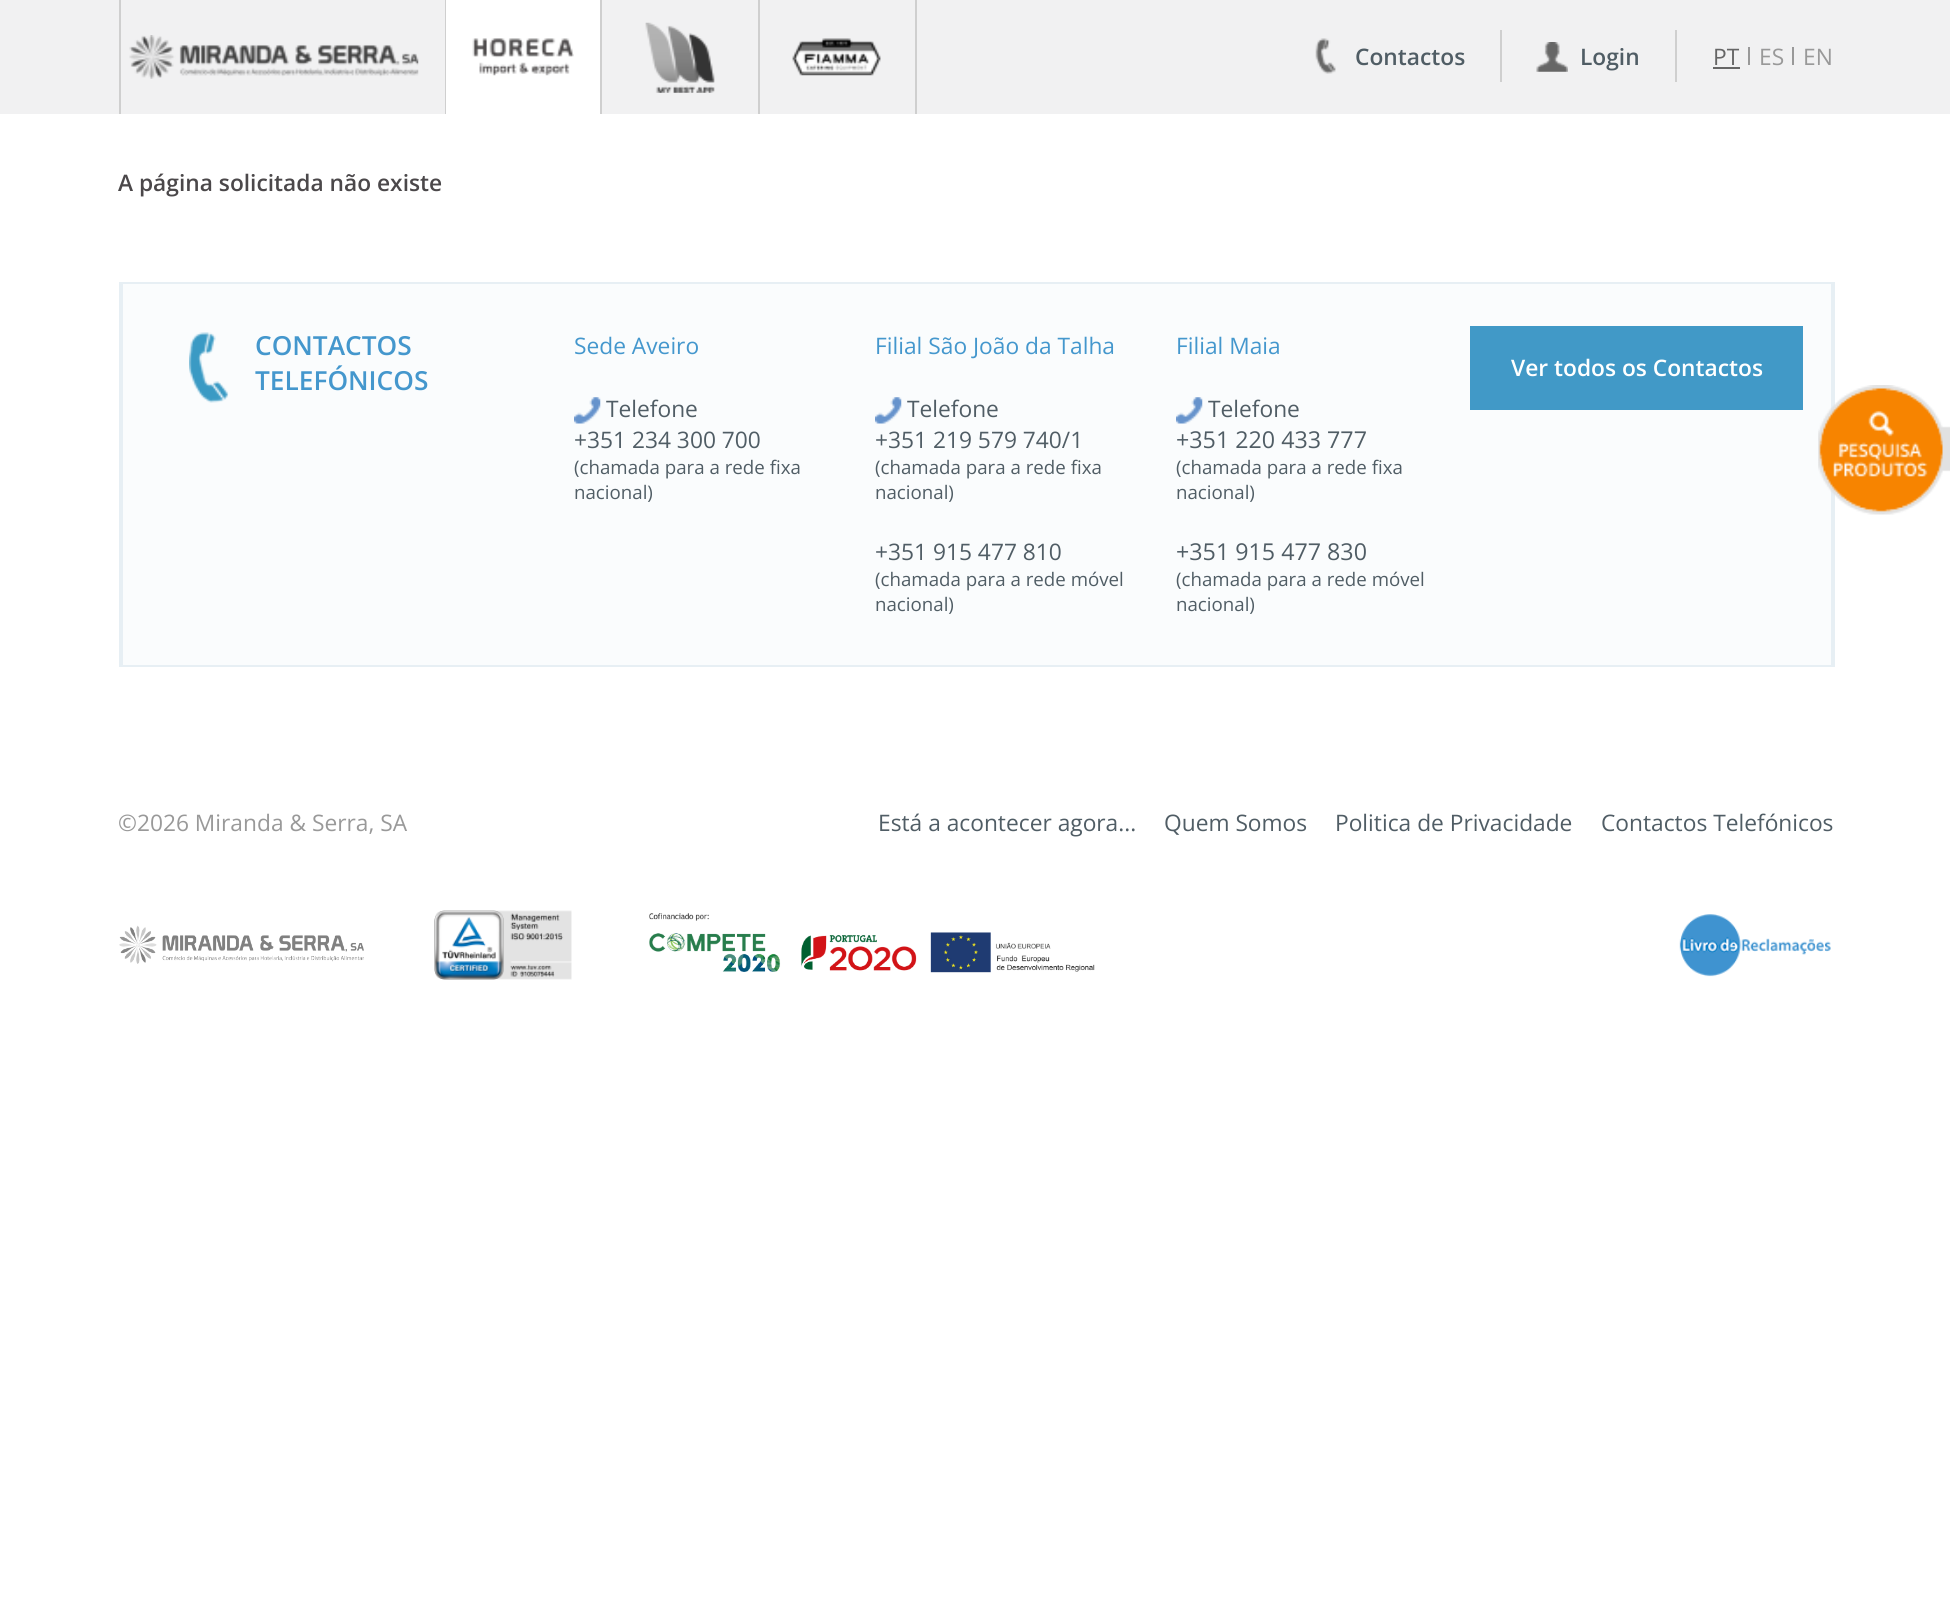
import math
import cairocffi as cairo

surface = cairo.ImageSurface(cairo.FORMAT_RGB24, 1950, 1622)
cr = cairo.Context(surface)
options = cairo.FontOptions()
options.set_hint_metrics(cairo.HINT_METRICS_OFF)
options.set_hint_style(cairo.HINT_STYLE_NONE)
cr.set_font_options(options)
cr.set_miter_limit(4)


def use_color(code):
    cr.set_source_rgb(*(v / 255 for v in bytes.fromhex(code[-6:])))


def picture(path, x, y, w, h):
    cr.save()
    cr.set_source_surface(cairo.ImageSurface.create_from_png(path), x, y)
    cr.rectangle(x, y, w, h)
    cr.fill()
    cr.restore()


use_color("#ffffff")
cr.paint()
use_color("#f1f1f2")
cr.rectangle(0, 0, 1950, 114)
cr.fill()
use_color("#cfcfcf")
cr.rectangle(445, 0, 1, 114)
cr.fill()
cr.rectangle(119, 0, 2, 114)
cr.fill()
picture("img1.png", 129, 35, 290, 44)
use_color("#ffffff")
cr.rectangle(446, 0, 154, 114)
cr.fill()
use_color("#cfcfcf")
cr.rectangle(600, 0, 2, 114)
cr.fill()
picture("img2.png", 472, 38, 102, 38)
cr.rectangle(758, 0, 2, 114)
cr.fill()
picture("img3.png", 645, 22, 70, 71)
cr.rectangle(915, 0, 2, 114)
cr.fill()
picture("img4.png", 792, 38, 89, 38)
cr.rectangle(1500, 30, 2, 52)
cr.fill()
picture("img5.png", 1315, 38, 21, 36)
cr.select_font_face("Open Sans SemiBold")
cr.set_font_size(22.75)
use_color("#505d65")
cr.move_to(1355, 65)
cr.show_text("Contactos")
use_color("#cfcfcf")
cr.rectangle(1675, 30, 2, 52)
cr.fill()
picture("img6.png", 1536, 42, 32, 30)
use_color("#505d65")
cr.move_to(1580, 65)
cr.show_text("Login")
use_color("#999999")
cr.rectangle(1748, 47, 2, 18)
cr.fill()
cr.select_font_face("Open Sans")
use_color("#666666")
cr.move_to(1713, 65)
cr.show_text("PT")
cr.rectangle(1713, 67, 27, 2)
cr.fill()
use_color("#999999")
cr.rectangle(1792, 47, 2, 18)
cr.fill()
cr.move_to(1759, 65)
cr.show_text("ES")
cr.move_to(1803, 65)
cr.show_text("EN")
cr.select_font_face("Open Sans SemiBold")
use_color("#4b484a")
cr.move_to(118, 191)
cr.show_text("A página solicitada não existe")
use_color("#fafcfd")
cr.rectangle(123, 284, 1708, 381)
cr.fill()
use_color("#e7eff4")
cr.rectangle(119, 282, 1715, 2)
cr.fill()
cr.rectangle(1831, 282, 4, 385)
cr.fill()
cr.rectangle(119, 665, 1715, 2)
cr.fill()
cr.rectangle(119, 282, 4, 385)
cr.fill()
picture("img7.png", 189, 332, 40, 71)
cr.set_font_size(26.25)
use_color("#4497cd")
cr.move_to(255, 355)
cr.show_text("CONTACTOS")
cr.move_to(255, 390)
cr.show_text("TELEFÓNICOS")
cr.select_font_face("Open Sans")
cr.set_font_size(22.75)
cr.move_to(574, 354)
cr.show_text("Sede Aveiro")
picture("img8.png", 574, 397, 27, 27)
use_color("#505d65")
cr.move_to(606, 417)
cr.show_text("Telefone")
cr.move_to(574, 448)
cr.show_text("+351 234 300 700")
cr.set_font_size(18.7)
cr.move_to(574, 474)
cr.show_text("(chamada para a rede fixa")
cr.move_to(574, 499)
cr.show_text("nacional)")
cr.set_font_size(22.75)
use_color("#4497cd")
cr.move_to(875, 354)
cr.show_text("Filial São João da Talha")
picture("img8.png", 875, 397, 27, 27)
use_color("#505d65")
cr.move_to(907, 417)
cr.show_text("Telefone")
cr.move_to(875, 448)
cr.show_text("+351 219 579 740/1")
cr.set_font_size(18.7)
cr.move_to(875, 474)
cr.show_text("(chamada para a rede fixa")
cr.move_to(875, 499)
cr.show_text("nacional)")
cr.set_font_size(22.75)
cr.move_to(875, 560)
cr.show_text("+351 915 477 810")
cr.set_font_size(18.7)
cr.move_to(875, 586)
cr.show_text("(chamada para a rede móvel")
cr.move_to(875, 611)
cr.show_text("nacional)")
cr.set_font_size(22.75)
use_color("#4497cd")
cr.move_to(1176, 354)
cr.show_text("Filial Maia")
picture("img8.png", 1176, 397, 27, 27)
use_color("#505d65")
cr.move_to(1208, 417)
cr.show_text("Telefone")
cr.set_font_size(23.25)
cr.move_to(1176, 448)
cr.show_text("+351 220 433 777")
cr.set_font_size(18.7)
cr.move_to(1176, 474)
cr.show_text("(chamada para a rede fixa")
cr.move_to(1176, 499)
cr.show_text("nacional)")
cr.set_font_size(23.25)
cr.move_to(1176, 560)
cr.show_text("+351 915 477 830")
cr.set_font_size(18.7)
cr.move_to(1176, 586)
cr.show_text("(chamada para a rede móvel")
cr.move_to(1176, 611)
cr.show_text("nacional)")
use_color("#4199c7")
cr.rectangle(1470, 326, 333, 84)
cr.fill()
cr.select_font_face("Open Sans SemiBold")
cr.set_font_size(22.75)
use_color("#ffffff")
cr.move_to(1511, 376)
cr.show_text("Ver todos os Contactos")
cr.select_font_face("Open Sans")
use_color("#999999")
cr.move_to(118, 831)
cr.show_text("©2026 Miranda & Serra, SA")
use_color("#505d65")
cr.move_to(878, 831)
cr.show_text("Está a acontecer agora...")
cr.move_to(1164, 831)
cr.show_text("Quem Somos")
cr.move_to(1335, 831)
cr.show_text("Politica de Privacidade")
cr.move_to(1601, 831)
cr.show_text("Contactos Telefónicos")
picture("img9.png", 119, 925, 245, 39)
picture("img10.png", 434, 910, 138, 70)
picture("img11.png", 649, 913, 446, 60)
picture("img12.png", 1679, 914, 152, 63)
picture("img13.png", 1818, 385, 132, 130)
surface.write_to_png("result.png")
